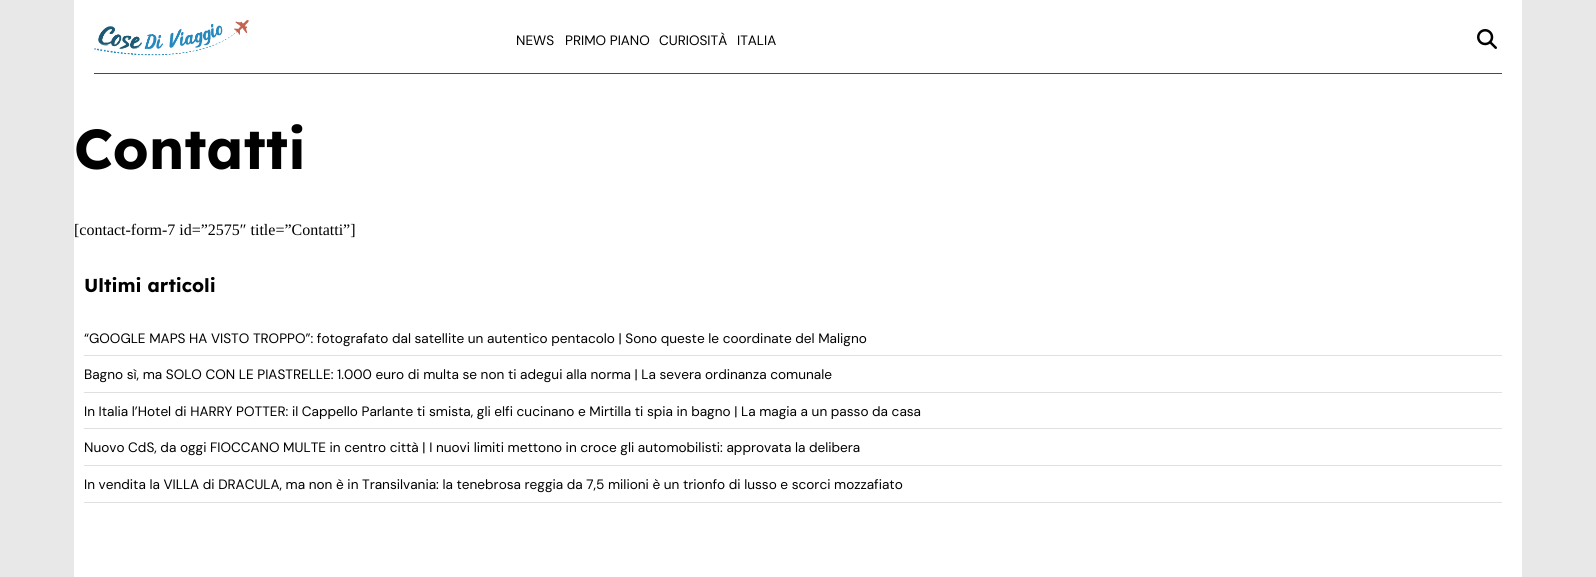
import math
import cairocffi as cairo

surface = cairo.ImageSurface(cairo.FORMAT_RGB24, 1596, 577)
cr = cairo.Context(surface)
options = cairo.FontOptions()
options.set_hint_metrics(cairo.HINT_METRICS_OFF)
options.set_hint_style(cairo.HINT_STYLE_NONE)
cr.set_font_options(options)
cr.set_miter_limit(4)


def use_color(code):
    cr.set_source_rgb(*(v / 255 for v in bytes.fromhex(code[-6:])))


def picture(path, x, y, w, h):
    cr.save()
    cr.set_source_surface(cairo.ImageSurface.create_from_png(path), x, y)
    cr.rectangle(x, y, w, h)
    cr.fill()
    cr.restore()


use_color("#e8e8e8")
cr.paint()
use_color("#ffffff")
cr.rectangle(74, 0, 1448, 577)
cr.fill()
use_color("#1d5873")
cr.rectangle(94, 73, 1408, 1)
cr.fill()
picture("img1.png", 94, 20, 155, 36)
cr.select_font_face("DM Sans")
cr.set_font_size(13.6)
use_color("#000000")
cr.move_to(516, 45)
cr.show_text("NEWS")
cr.move_to(565, 45)
cr.show_text("PRIMO PIANO")
cr.move_to(659, 45)
cr.show_text("CURIOSITÀ")
cr.move_to(737, 45)
cr.show_text("ITALIA")
picture("img2.png", 1477, 29, 20, 20)
cr.select_font_face("Lexend", cairo.FONT_SLANT_NORMAL, cairo.FONT_WEIGHT_BOLD)
cr.set_font_size(56)
cr.move_to(74, 169)
cr.show_text("Contatti")
cr.select_font_face("Liberation Serif")
cr.set_font_size(16)
cr.move_to(74, 235)
cr.show_text("[contact-form-7 id=”2575″ title=”Contatti”]")
cr.select_font_face("Lexend", cairo.FONT_SLANT_NORMAL, cairo.FONT_WEIGHT_BOLD)
cr.set_font_size(18.75)
cr.move_to(84, 292)
cr.show_text("Ultimi articoli")
use_color("#e0e0e0")
cr.rectangle(84, 355, 1418, 1)
cr.fill()
cr.select_font_face("DM Sans")
cr.set_font_size(13.6)
use_color("#000000")
cr.move_to(84, 343)
cr.show_text("“GOOGLE MAPS HA VISTO TROPPO”: fotografato dal satellite un autentico pentacolo | Sono queste le coordinate del Maligno")
use_color("#e0e0e0")
cr.rectangle(84, 392, 1418, 1)
cr.fill()
use_color("#000000")
cr.move_to(84, 379)
cr.show_text("Bagno sì, ma SOLO CON LE PIASTRELLE: 1.000 euro di multa se non ti adegui alla norma | La severa ordinanza comunale")
use_color("#e0e0e0")
cr.rectangle(84, 428, 1418, 1)
cr.fill()
use_color("#000000")
cr.move_to(84, 416)
cr.show_text("In Italia l’Hotel di HARRY POTTER: il Cappello Parlante ti smista, gli elfi cucinano e Mirtilla ti spia in bagno | La magia a un passo da casa")
use_color("#e0e0e0")
cr.rectangle(84, 465, 1418, 1)
cr.fill()
use_color("#000000")
cr.move_to(84, 452)
cr.show_text("Nuovo CdS, da oggi FIOCCANO MULTE in centro città | I nuovi limiti mettono in croce gli automobilisti: approvata la delibera")
use_color("#e0e0e0")
cr.rectangle(84, 502, 1418, 1)
cr.fill()
use_color("#000000")
cr.move_to(84, 489)
cr.show_text("In vendita la VILLA di DRACULA, ma non è in Transilvania: la tenebrosa reggia da 7,5 milioni è un trionfo di lusso e scorci mozzafiato")
surface.write_to_png("result.png")
